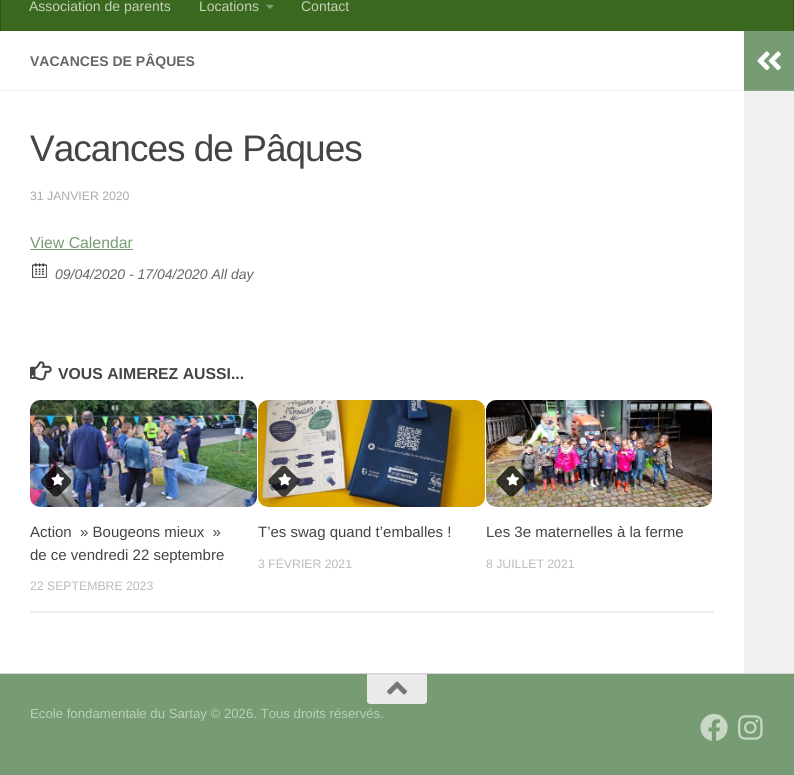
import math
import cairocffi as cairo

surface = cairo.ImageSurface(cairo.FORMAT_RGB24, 794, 775)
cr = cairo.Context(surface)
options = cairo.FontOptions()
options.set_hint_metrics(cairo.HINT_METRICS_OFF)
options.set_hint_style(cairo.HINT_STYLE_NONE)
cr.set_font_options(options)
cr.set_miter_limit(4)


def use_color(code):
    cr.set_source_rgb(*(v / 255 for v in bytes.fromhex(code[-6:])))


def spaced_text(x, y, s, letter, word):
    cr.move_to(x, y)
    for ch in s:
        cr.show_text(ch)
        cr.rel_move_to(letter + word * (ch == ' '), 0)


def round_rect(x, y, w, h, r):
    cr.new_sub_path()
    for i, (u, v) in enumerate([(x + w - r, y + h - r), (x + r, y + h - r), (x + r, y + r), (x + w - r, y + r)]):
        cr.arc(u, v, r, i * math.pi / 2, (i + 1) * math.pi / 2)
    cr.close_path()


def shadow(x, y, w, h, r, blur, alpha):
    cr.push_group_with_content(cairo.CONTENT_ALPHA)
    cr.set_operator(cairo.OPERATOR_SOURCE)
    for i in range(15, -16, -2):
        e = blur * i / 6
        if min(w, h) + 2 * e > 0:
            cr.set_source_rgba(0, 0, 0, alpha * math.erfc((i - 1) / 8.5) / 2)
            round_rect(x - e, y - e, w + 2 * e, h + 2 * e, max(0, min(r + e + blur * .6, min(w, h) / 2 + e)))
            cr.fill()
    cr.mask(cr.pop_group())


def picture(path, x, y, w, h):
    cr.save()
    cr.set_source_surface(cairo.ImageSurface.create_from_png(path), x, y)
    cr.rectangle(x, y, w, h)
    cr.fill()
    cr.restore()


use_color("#eaeaea")
cr.paint()
use_color("#000000")
shadow(0, 32, 794, 642, 0, 0.5, 0.1)
use_color("#3b681f")
cr.rectangle(1, 0, 792, 31)
cr.fill()
use_color("#2f5319")
cr.rectangle(793, 0, 1, 31)
cr.fill()
cr.rectangle(0, 0, 1, 31)
cr.fill()
cr.select_font_face("Liberation Sans")
cr.set_font_size(14)
use_color("#c4d2bc")
cr.move_to(29, 11)
cr.show_text("Association de parents")
cr.move_to(199, 11)
cr.show_text("Locations")
picture("img1.png", 266, 4, 8, 5)
cr.move_to(301, 11)
cr.show_text("Contact")
use_color("#ffffff")
cr.rectangle(0, 31, 744, 642)
cr.fill()
use_color("#eeeeee")
cr.rectangle(0, 90, 744, 1)
cr.fill()
cr.select_font_face("Liberation Sans", cairo.FONT_SLANT_NORMAL, cairo.FONT_WEIGHT_BOLD)
use_color("#666666")
cr.move_to(30, 66)
cr.show_text("VACANCES DE PÂQUES")
cr.select_font_face("Liberation Sans")
cr.set_font_size(37)
use_color("#444444")
spaced_text(30, 161, "Vacances de Pâques", -1, 0)
cr.set_font_size(12.25)
use_color("#aaaaaa")
cr.move_to(30, 200)
cr.show_text("31 JANVIER 2020")
cr.set_font_size(15.8)
use_color("#779c73")
cr.move_to(30, 248)
cr.show_text("View Calendar")
cr.rectangle(30, 249, 103, 1)
cr.fill()
picture("img2.png", 32, 263, 15, 15)
cr.select_font_face("Liberation Sans", cairo.FONT_SLANT_ITALIC)
cr.set_font_size(14)
use_color("#666666")
cr.move_to(55, 279)
cr.show_text("09/04/2020 - 17/04/2020 All day")
picture("img3.png", 30, 361, 22, 20)
cr.select_font_face("Liberation Sans", cairo.FONT_SLANT_NORMAL, cairo.FONT_WEIGHT_BOLD)
cr.set_font_size(15.8)
use_color("#444444")
cr.move_to(58, 379)
cr.show_text("VOUS AIMEREZ AUSSI...")
use_color("#eeeeee")
cr.rectangle(30, 611, 684, 2)
cr.fill()
picture("img4.png", 30, 400, 227, 107)
cr.save()
cr.set_fill_rule(cairo.FILL_RULE_EVEN_ODD)
cr.new_path()
cr.move_to(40, 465)
cr.line_to(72, 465)
cr.line_to(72, 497)
cr.line_to(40, 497)
cr.close_path()
cr.move_to(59, 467)
cr.line_to(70, 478.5)
cr.curve_to(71.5, 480, 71.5, 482.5, 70, 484)
cr.line_to(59, 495.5)
cr.curve_to(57.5, 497, 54.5, 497, 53, 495.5)
cr.line_to(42, 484)
cr.curve_to(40.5, 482.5, 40.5, 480, 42, 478.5)
cr.line_to(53, 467)
cr.curve_to(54.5, 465.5, 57.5, 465.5, 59, 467)
cr.close_path()
cr.clip()
use_color("#ffffff")
shadow(44, 469, 24, 24, 4, 1, 0.4)
cr.restore()
cr.set_source_rgba(0, 0, 0, 0.7)
cr.new_path()
cr.move_to(59, 467)
cr.line_to(70, 478.5)
cr.curve_to(71.5, 480, 71.5, 482.5, 70, 484)
cr.line_to(59, 495.5)
cr.curve_to(57.5, 497, 54.5, 497, 53, 495.5)
cr.line_to(42, 484)
cr.curve_to(40.5, 482.5, 40.5, 480, 42, 478.5)
cr.line_to(53, 467)
cr.curve_to(54.5, 465.5, 57.5, 465.5, 59, 467)
cr.close_path()
cr.fill()
picture("img5.png", 51, 473, 13, 13)
cr.select_font_face("Liberation Sans")
cr.set_font_size(15)
use_color("#444444")
cr.move_to(30, 537)
cr.show_text("Action  » Bougeons mieux  »")
cr.move_to(30, 560)
cr.show_text("de ce vendredi 22 septembre")
cr.set_font_size(12.25)
use_color("#bbbbbb")
cr.move_to(30, 590)
cr.show_text("22 SEPTEMBRE 2023")
picture("img6.png", 258, 400, 227, 107)
cr.save()
cr.set_fill_rule(cairo.FILL_RULE_EVEN_ODD)
cr.new_path()
cr.move_to(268, 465)
cr.line_to(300, 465)
cr.line_to(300, 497)
cr.line_to(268, 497)
cr.close_path()
cr.move_to(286.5, 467)
cr.line_to(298, 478.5)
cr.curve_to(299.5, 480, 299.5, 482.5, 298, 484)
cr.line_to(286.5, 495.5)
cr.curve_to(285, 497, 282.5, 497, 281, 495.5)
cr.line_to(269.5, 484)
cr.curve_to(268, 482.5, 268, 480, 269.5, 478.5)
cr.line_to(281, 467)
cr.curve_to(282.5, 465.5, 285, 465.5, 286.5, 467)
cr.close_path()
cr.clip()
use_color("#ffffff")
shadow(272, 469, 24, 24, 4, 1, 0.4)
cr.restore()
cr.set_source_rgba(0, 0, 0, 0.7)
cr.new_path()
cr.move_to(286.5, 467)
cr.line_to(298, 478.5)
cr.curve_to(299.5, 480, 299.5, 482.5, 298, 484)
cr.line_to(286.5, 495.5)
cr.curve_to(285, 497, 282.5, 497, 281, 495.5)
cr.line_to(269.5, 484)
cr.curve_to(268, 482.5, 268, 480, 269.5, 478.5)
cr.line_to(281, 467)
cr.curve_to(282.5, 465.5, 285, 465.5, 286.5, 467)
cr.close_path()
cr.fill()
picture("img7.png", 278, 473, 13, 13)
cr.set_font_size(15)
use_color("#444444")
cr.move_to(258, 537)
cr.show_text("T’es swag quand t’emballes !")
cr.set_font_size(12.25)
use_color("#bbbbbb")
cr.move_to(258, 568)
cr.show_text("3 FÉVRIER 2021")
picture("img8.png", 486, 400, 226, 107)
cr.save()
cr.set_fill_rule(cairo.FILL_RULE_EVEN_ODD)
cr.new_path()
cr.move_to(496, 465)
cr.line_to(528, 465)
cr.line_to(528, 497)
cr.line_to(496, 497)
cr.close_path()
cr.move_to(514.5, 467)
cr.line_to(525.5, 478.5)
cr.curve_to(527, 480, 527, 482.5, 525.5, 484)
cr.line_to(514.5, 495.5)
cr.curve_to(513, 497, 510.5, 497, 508.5, 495.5)
cr.line_to(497.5, 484)
cr.curve_to(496, 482.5, 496, 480, 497.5, 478.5)
cr.line_to(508.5, 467)
cr.curve_to(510.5, 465.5, 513, 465.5, 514.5, 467)
cr.close_path()
cr.clip()
use_color("#ffffff")
shadow(500, 469, 24, 24, 4, 1, 0.4)
cr.restore()
cr.set_source_rgba(0, 0, 0, 0.7)
cr.new_path()
cr.move_to(514.5, 467)
cr.line_to(525.5, 478.5)
cr.curve_to(527, 480, 527, 482.5, 525.5, 484)
cr.line_to(514.5, 495.5)
cr.curve_to(513, 497, 510.5, 497, 508.5, 495.5)
cr.line_to(497.5, 484)
cr.curve_to(496, 482.5, 496, 480, 497.5, 478.5)
cr.line_to(508.5, 467)
cr.curve_to(510.5, 465.5, 513, 465.5, 514.5, 467)
cr.close_path()
cr.fill()
picture("img9.png", 506, 473, 13, 13)
cr.set_font_size(15)
use_color("#444444")
cr.move_to(486, 537)
cr.show_text("Les 3e maternelles à la ferme")
cr.set_font_size(12.25)
use_color("#bbbbbb")
cr.move_to(486, 568)
cr.show_text("8 JUILLET 2021")
use_color("#779c73")
cr.rectangle(744, 31, 50, 59)
cr.fill()
use_color("#85a681")
cr.rectangle(744, 90, 50, 1)
cr.fill()
picture("img10.png", 757, 51, 24, 20)
use_color("#f0f0f0")
cr.rectangle(744, 91, 50, 582)
cr.fill()
use_color("#779c73")
cr.rectangle(0, 674, 794, 101)
cr.fill()
use_color("#eaeaea")
cr.new_path()
cr.move_to(367, 674)
cr.line_to(427, 674)
cr.line_to(427, 701)
cr.curve_to(427, 702.5, 425.5, 704, 424, 704)
cr.line_to(370, 704)
cr.curve_to(368.5, 704, 367, 702.5, 367, 701)
cr.close_path()
cr.fill()
use_color("#dedede")
cr.rectangle(367, 674, 60, 1)
cr.fill()
picture("img11.png", 387, 681, 20, 14)
cr.set_font_size(13.2)
use_color("#bbceb9")
cr.move_to(30, 718)
cr.show_text("Ecole fondamentale du Sartay © 2026. Tous droits réservés.")
picture("img12.png", 700, 714, 28, 27)
picture("img13.png", 738, 715, 25, 25)
surface.write_to_png("result.png")
